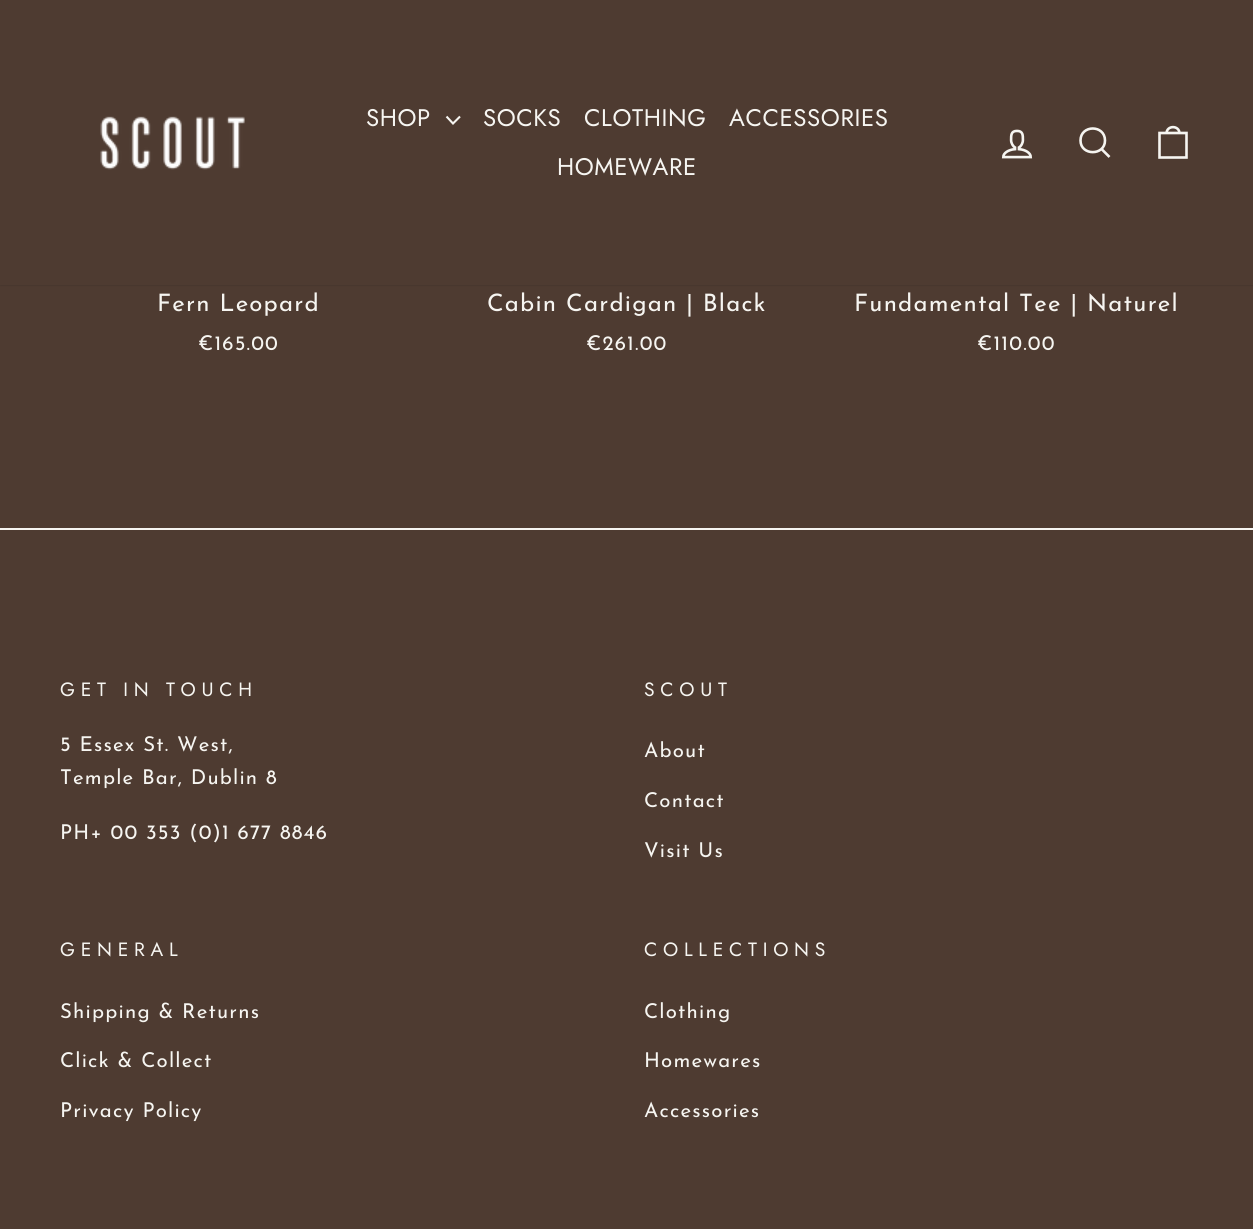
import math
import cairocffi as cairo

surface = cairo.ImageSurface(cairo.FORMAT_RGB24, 1253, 1229)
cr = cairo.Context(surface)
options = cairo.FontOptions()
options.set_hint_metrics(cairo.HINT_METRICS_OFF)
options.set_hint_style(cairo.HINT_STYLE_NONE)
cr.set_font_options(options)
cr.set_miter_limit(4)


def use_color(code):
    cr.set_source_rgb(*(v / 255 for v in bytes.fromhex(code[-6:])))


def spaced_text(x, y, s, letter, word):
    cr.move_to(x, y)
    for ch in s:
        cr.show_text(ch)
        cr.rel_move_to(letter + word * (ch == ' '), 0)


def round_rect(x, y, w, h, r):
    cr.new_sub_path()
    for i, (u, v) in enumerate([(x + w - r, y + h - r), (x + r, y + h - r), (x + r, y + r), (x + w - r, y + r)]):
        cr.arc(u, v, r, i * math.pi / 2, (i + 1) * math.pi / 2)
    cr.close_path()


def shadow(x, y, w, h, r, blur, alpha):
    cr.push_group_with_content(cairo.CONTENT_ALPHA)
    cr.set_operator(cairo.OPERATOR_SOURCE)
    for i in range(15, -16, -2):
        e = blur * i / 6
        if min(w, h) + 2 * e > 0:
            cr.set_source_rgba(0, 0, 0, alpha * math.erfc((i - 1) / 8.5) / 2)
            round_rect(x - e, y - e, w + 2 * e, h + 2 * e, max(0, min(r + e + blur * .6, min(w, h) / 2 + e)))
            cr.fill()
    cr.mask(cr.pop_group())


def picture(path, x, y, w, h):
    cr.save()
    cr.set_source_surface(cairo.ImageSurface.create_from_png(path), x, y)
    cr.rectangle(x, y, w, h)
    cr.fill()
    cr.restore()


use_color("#4e3b31")
cr.paint()
use_color("#000000")
shadow(0, 0, 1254, 285, 0, 1, 0.2)
use_color("#4e3b31")
cr.rectangle(0, 0, 1253, 285)
cr.fill()
picture("img1.png", 100, 116, 145, 54)
cr.select_font_face("Jost")
cr.set_font_size(24)
use_color("#f6f5f1")
spaced_text(366, 126, "SHOP", 0.6, 0)
cr.new_path()
cr.move_to(446.5, 116.5)
cr.line_to(453, 123.5)
cr.line_to(460, 116.5)
cr.set_line_width(2.1)
cr.stroke()
spaced_text(483, 126, "SOCKS", 0.6, 0)
spaced_text(584, 126, "CLOTHING", 0.6, 0)
spaced_text(729, 126, "ACCESSORIES", 0.6, 0)
spaced_text(557, 175, "HOMEWARE", 0.6, 0)
picture("img2.png", 1001, 129, 32, 30)
cr.new_path()
cr.move_to(1105, 140.5)
cr.curve_to(1105, 156, 1080.5, 156, 1080.5, 140.5)
cr.curve_to(1080.5, 124.5, 1105, 124.5, 1105, 140.5)
cr.close_path()
cr.move_to(1109.5, 157)
cr.line_to(1101.5, 149)
cr.set_line_width(2.6)
cr.stroke()
cr.new_path()
cr.move_to(1159.5, 133)
cr.line_to(1186.5, 133)
cr.line_to(1186.5, 157.5)
cr.line_to(1159.5, 157.5)
cr.close_path()
cr.move_to(1166.5, 133.5)
cr.curve_to(1166.5, 125, 1179.5, 125, 1179.5, 133.5)
cr.stroke()
cr.select_font_face("Josefin Sans")
spaced_text(157, 311, "Fern Leopard", 1.2, 0)
cr.set_font_size(20.4)
spaced_text(198, 350, "€165.00", 1.2, 0)
cr.set_font_size(24)
spaced_text(487, 311, "Cabin Cardigan | Black", 1.2, 0)
cr.set_font_size(20.4)
spaced_text(586, 350, "€261.00", 1.2, 0)
cr.set_font_size(24)
spaced_text(854, 311, "Fundamental Tee | Naturel", 1.2, 0)
cr.set_font_size(20.4)
spaced_text(977, 350, "€110.00", 1.2, 0)
cr.rectangle(0, 528, 1253, 2)
cr.fill()
cr.select_font_face("Jost")
cr.set_font_size(19.25)
spaced_text(60, 696, "GET IN TOUCH", 5.75, 0)
cr.select_font_face("Josefin Sans")
cr.set_font_size(20.4)
spaced_text(60, 751, "5 Essex St. West,", 1.2, 0)
spaced_text(60, 784, "Temple Bar, Dublin 8", 1.2, 0)
spaced_text(60, 839, "PH+ 00 353 (0)1 677 8846", 1.2, 0)
cr.select_font_face("Jost")
cr.set_font_size(19.25)
spaced_text(644, 696, "SCOUT", 5.75, 0)
cr.select_font_face("Josefin Sans")
cr.set_font_size(20.4)
spaced_text(644, 757, "About", 1.2, 0)
spaced_text(644, 807, "Contact", 1.2, 0)
spaced_text(644, 857, "Visit Us", 1.2, 0)
cr.select_font_face("Jost")
cr.set_font_size(19.25)
spaced_text(60, 956, "GENERAL", 5.75, 0)
cr.select_font_face("Josefin Sans")
cr.set_font_size(20.4)
spaced_text(60, 1018, "Shipping & Returns", 1.2, 0)
spaced_text(60, 1067, "Click & Collect", 1.2, 0)
spaced_text(60, 1117, "Privacy Policy", 1.2, 0)
cr.select_font_face("Jost")
cr.set_font_size(19.25)
spaced_text(644, 956, "COLLECTIONS", 5.75, 0)
cr.select_font_face("Josefin Sans")
cr.set_font_size(20.4)
spaced_text(644, 1018, "Clothing", 1.2, 0)
spaced_text(644, 1067, "Homewares", 1.2, 0)
spaced_text(644, 1117, "Accessories", 1.2, 0)
surface.write_to_png("result.png")
